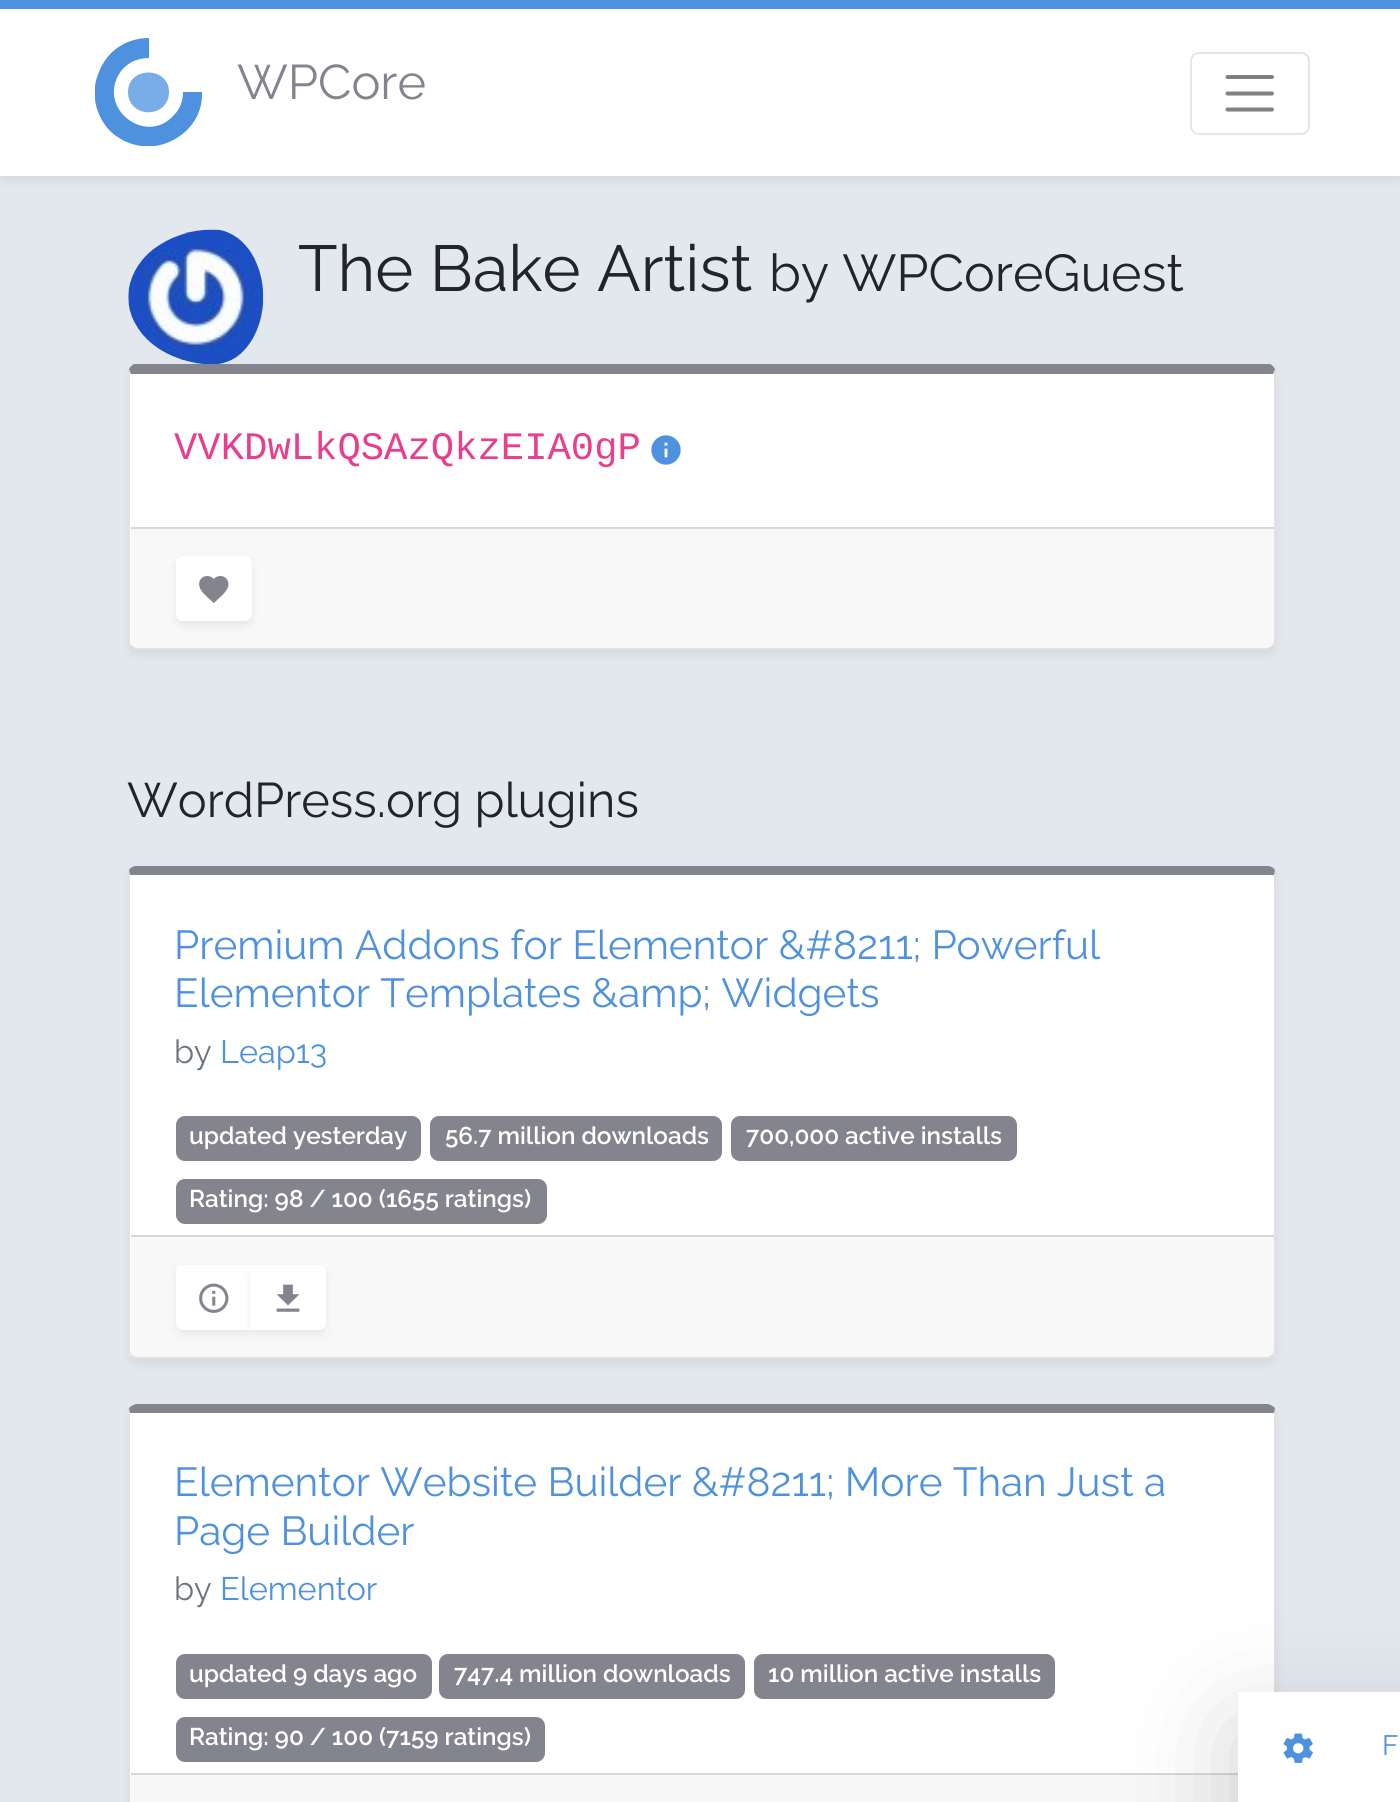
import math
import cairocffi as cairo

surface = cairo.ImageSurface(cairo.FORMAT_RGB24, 1400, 1802)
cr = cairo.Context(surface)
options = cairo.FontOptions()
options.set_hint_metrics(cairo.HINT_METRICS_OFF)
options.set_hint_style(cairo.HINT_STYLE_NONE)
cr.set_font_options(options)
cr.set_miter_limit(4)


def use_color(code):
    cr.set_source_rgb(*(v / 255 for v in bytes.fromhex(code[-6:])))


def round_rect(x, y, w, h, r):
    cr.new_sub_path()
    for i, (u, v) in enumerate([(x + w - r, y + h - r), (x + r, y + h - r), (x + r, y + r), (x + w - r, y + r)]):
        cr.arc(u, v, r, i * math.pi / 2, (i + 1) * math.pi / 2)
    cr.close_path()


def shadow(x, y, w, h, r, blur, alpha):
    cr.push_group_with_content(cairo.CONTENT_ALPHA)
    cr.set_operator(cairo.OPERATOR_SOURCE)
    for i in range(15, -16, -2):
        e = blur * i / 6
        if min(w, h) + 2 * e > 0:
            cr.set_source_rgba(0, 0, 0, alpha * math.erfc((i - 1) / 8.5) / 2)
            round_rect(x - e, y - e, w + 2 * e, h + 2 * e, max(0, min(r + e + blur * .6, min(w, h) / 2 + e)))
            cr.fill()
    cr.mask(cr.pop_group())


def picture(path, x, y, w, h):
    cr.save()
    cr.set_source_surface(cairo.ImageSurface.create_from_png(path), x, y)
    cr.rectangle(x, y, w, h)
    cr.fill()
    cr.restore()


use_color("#e3e8ee")
cr.paint()
use_color("#4e92df")
cr.rectangle(0, 0, 1400, 9)
cr.fill()
use_color("#000000")
shadow(0, 14, 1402, 166, 0, 4.5, 0.07)
use_color("#ffffff")
cr.rectangle(0, 9, 1400, 167)
cr.fill()
cr.save()
cr.rectangle(95, 38, 108, 108)
cr.clip()
use_color("#4e92df")
cr.new_path()
cr.move_to(183, 92)
cr.curve_to(183, 101, 180, 109, 174, 115)
cr.curve_to(147, 146, 98, 110, 119, 74)
cr.curve_to(125, 64, 136, 58, 149, 58)
cr.line_to(149, 38)
cr.curve_to(126, 38, 107, 51, 99, 72)
cr.curve_to(90, 92, 95, 115, 110, 131)
cr.curve_to(126, 146, 149, 151, 169, 142)
cr.curve_to(190, 133, 203, 114, 202, 92)
cr.close_path()
cr.fill()
cr.restore()
use_color("#79ade7")
cr.new_path()
cr.move_to(128, 92)
cr.curve_to(128, 66, 169, 66, 169, 92)
cr.curve_to(169, 119, 128, 119, 128, 92)
cr.close_path()
cr.fill()
cr.select_font_face("Raleway")
cr.set_font_size(48.6)
use_color("#83848e")
cr.move_to(237, 99)
cr.show_text("WPCore")
round_rect(1191, 53, 118, 81, 8)
use_color("#e6e6e6")
cr.stroke()
cr.new_path()
cr.move_to(1227.5, 77)
cr.line_to(1272, 77)
cr.move_to(1227.5, 93.5)
cr.line_to(1272, 93.5)
cr.move_to(1227.5, 109.5)
cr.line_to(1272, 109.5)
use_color("#808080")
cr.set_line_width(4)
cr.set_line_cap(cairo.LINE_CAP_ROUND)
cr.stroke()
picture("img1.png", 128, 229, 136, 135)
cr.set_font_size(64.75)
use_color("#212529")
cr.move_to(298, 291)
cr.show_text("The Bake Artist")
cr.set_font_size(51.75)
cr.move_to(769, 291)
cr.show_text("by WPCoreGuest")
use_color("#000000")
shadow(128, 369, 1148, 286, 9, 4.5, 0.07)
use_color("#ffffff")
round_rect(128, 365, 1148, 285, 9)
cr.fill()
use_color("#83848e")
cr.new_path()
cr.move_to(129, 369)
cr.curve_to(130, 367, 132, 365, 134, 364)
cr.line_to(1270, 364)
cr.curve_to(1272, 365, 1274, 367, 1275, 369)
cr.line_to(1273, 374)
cr.line_to(131, 374)
cr.close_path()
cr.fill()
cr.set_source_rgba(0, 0, 0, 0.12)
cr.new_path()
cr.move_to(1276, 643)
cr.curve_to(1275, 645, 1274, 646, 1273, 648)
cr.line_to(1272, 646)
cr.curve_to(1273, 645, 1274, 643, 1274, 641)
cr.line_to(1274, 374)
cr.line_to(1273, 374)
cr.line_to(1275, 369)
cr.line_to(1276, 372)
cr.close_path()
cr.fill()
cr.new_path()
cr.move_to(1273, 648)
cr.curve_to(1272, 649, 1269, 650, 1267, 650)
cr.line_to(137, 650)
cr.curve_to(135, 650, 132, 649, 131, 648)
cr.line_to(132, 646)
cr.curve_to(134, 647, 136, 648, 137, 648)
cr.line_to(1267, 648)
cr.curve_to(1268, 648, 1270, 647, 1272, 646)
cr.close_path()
cr.fill()
cr.new_path()
cr.move_to(128, 372)
cr.line_to(129, 369)
cr.line_to(131, 374)
cr.line_to(130, 374)
cr.line_to(130, 641)
cr.curve_to(130, 643, 131, 645, 132, 646)
cr.line_to(131, 648)
cr.curve_to(130, 646, 129, 645, 128, 643)
cr.close_path()
cr.fill()
cr.select_font_face("Liberation Mono")
cr.set_font_size(38.9)
use_color("#e83e8c")
cr.move_to(174, 459)
cr.show_text("VVKDwLkQSAzQkzEIA0gP")
picture("img2.png", 651, 435, 30, 30)
cr.set_source_rgba(0, 0, 0, 0.03)
cr.rectangle(131, 529, 1143, 119)
cr.fill()
use_color("#d8d8d8")
cr.rectangle(131, 527, 1143, 2)
cr.fill()
use_color("#000000")
shadow(176, 560, 76, 66, 7, 4.5, 0.07)
use_color("#ffffff")
round_rect(177, 557, 74, 63, 6)
cr.fill_preserve()
cr.set_line_width(2)
cr.set_line_cap(cairo.LINE_CAP_BUTT)
cr.stroke()
picture("img3.png", 199, 576, 30, 27)
cr.select_font_face("Raleway")
cr.set_font_size(48.6)
use_color("#212529")
cr.move_to(127, 817)
cr.show_text("WordPress.org plugins")
use_color("#000000")
shadow(128, 871, 1148, 493, 9, 4.5, 0.07)
use_color("#ffffff")
round_rect(128, 866, 1148, 493, 9)
cr.fill()
use_color("#83848e")
cr.new_path()
cr.move_to(129, 870)
cr.curve_to(130, 868, 132, 867, 135, 866)
cr.line_to(1269, 866)
cr.curve_to(1272, 867, 1274, 868, 1275, 870)
cr.line_to(1274, 875)
cr.line_to(130, 875)
cr.close_path()
cr.fill()
cr.set_source_rgba(0, 0, 0, 0.12)
cr.new_path()
cr.move_to(1276, 1352)
cr.curve_to(1275, 1354, 1274, 1355, 1273, 1356)
cr.line_to(1272, 1355)
cr.curve_to(1273, 1354, 1274, 1352, 1274, 1350)
cr.line_to(1274, 875)
cr.line_to(1275, 870)
cr.line_to(1276, 873)
cr.close_path()
cr.fill()
cr.new_path()
cr.move_to(137, 1359)
cr.line_to(1267, 1359)
cr.curve_to(1269, 1359, 1272, 1358, 1273, 1356)
cr.line_to(1272, 1355)
cr.curve_to(1270, 1356, 1269, 1357, 1267, 1357)
cr.line_to(136, 1357)
cr.line_to(132, 1355)
cr.line_to(131, 1356)
cr.curve_to(132, 1358, 135, 1359, 137, 1359)
cr.close_path()
cr.fill()
cr.new_path()
cr.move_to(128, 873)
cr.line_to(129, 870)
cr.line_to(130, 875)
cr.line_to(130, 1350)
cr.curve_to(130, 1352, 131, 1354, 132, 1355)
cr.line_to(131, 1356)
cr.curve_to(130, 1355, 129, 1354, 128, 1352)
cr.close_path()
cr.fill()
cr.set_font_size(40.5)
use_color("#4e92df")
cr.move_to(174, 959)
cr.show_text("Premium Addons for Elementor &#8211; Powerful")
cr.move_to(174, 1007)
cr.show_text("Elementor Templates &amp; Widgets")
cr.set_font_size(32.5)
use_color("#6c757d")
cr.move_to(174, 1063)
cr.show_text("by")
use_color("#4e92df")
cr.move_to(220, 1063)
cr.show_text("Leap13")
use_color("#83848e")
round_rect(176, 1116, 245, 45, 9)
cr.fill()
cr.select_font_face("Raleway SemiBold")
cr.set_font_size(24.25)
use_color("#ffffff")
cr.move_to(189, 1144)
cr.show_text("updated yesterday")
use_color("#83848e")
round_rect(430, 1116, 292, 45, 9)
cr.fill()
use_color("#ffffff")
cr.move_to(445, 1144)
cr.show_text("56.7 million downloads")
use_color("#83848e")
round_rect(731, 1116, 286, 45, 9)
cr.fill()
use_color("#ffffff")
cr.move_to(746, 1144)
cr.show_text("700,000 active installs")
use_color("#83848e")
round_rect(176, 1179, 371, 45, 9)
cr.fill()
use_color("#ffffff")
cr.move_to(189, 1207)
cr.show_text("Rating: 98 / 100 (1655 ratings)")
cr.set_source_rgba(0, 0, 0, 0.03)
cr.rectangle(131, 1237, 1143, 120)
cr.fill()
use_color("#d8d8d8")
cr.rectangle(131, 1235, 1143, 2)
cr.fill()
use_color("#000000")
shadow(176, 1269, 76, 65, 7, 4.5, 0.07)
use_color("#ffffff")
cr.new_path()
cr.move_to(183, 1266)
cr.line_to(251, 1266)
cr.line_to(251, 1329)
cr.line_to(183, 1329)
cr.curve_to(179.5, 1329, 177, 1326.5, 177, 1323)
cr.line_to(177, 1272)
cr.curve_to(177, 1268.5, 179.5, 1266, 183, 1266)
cr.close_path()
cr.fill_preserve()
cr.stroke()
picture("img4.png", 199, 1283, 30, 30)
use_color("#000000")
shadow(250, 1269, 76, 65, 7, 4.5, 0.07)
use_color("#ffffff")
cr.new_path()
cr.move_to(251, 1266)
cr.line_to(319, 1266)
cr.curve_to(322.5, 1266, 325, 1268.5, 325, 1272)
cr.line_to(325, 1323)
cr.curve_to(325, 1326.5, 322.5, 1329, 319, 1329)
cr.line_to(251, 1329)
cr.close_path()
cr.fill_preserve()
cr.stroke()
picture("img5.png", 276, 1284, 24, 28)
use_color("#000000")
shadow(128, 1409, 1148, 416, 9, 4.5, 0.07)
use_color("#ffffff")
round_rect(128, 1404, 1148, 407, 9)
cr.fill()
use_color("#83848e")
cr.new_path()
cr.move_to(137, 1404)
cr.curve_to(134, 1404, 131, 1406, 129, 1408)
cr.line_to(130, 1413)
cr.line_to(1274, 1413)
cr.line_to(1275, 1408)
cr.curve_to(1273, 1406, 1270, 1404, 1267, 1404)
cr.close_path()
cr.fill()
cr.set_source_rgba(0, 0, 0, 0.12)
cr.new_path()
cr.move_to(1276, 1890)
cr.line_to(1273, 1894)
cr.line_to(1271, 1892)
cr.curve_to(1273, 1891, 1274, 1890, 1274, 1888)
cr.line_to(1274, 1413)
cr.line_to(1275, 1408)
cr.line_to(1276, 1411)
cr.close_path()
cr.fill()
cr.new_path()
cr.move_to(128, 1411)
cr.line_to(129, 1408)
cr.line_to(130, 1413)
cr.line_to(130, 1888)
cr.curve_to(130, 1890, 131, 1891, 133, 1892)
cr.line_to(131, 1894)
cr.curve_to(129, 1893, 129, 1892, 128, 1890)
cr.close_path()
cr.fill()
cr.select_font_face("Raleway")
cr.set_font_size(40.5)
use_color("#4e92df")
cr.move_to(174, 1496)
cr.show_text("Elementor Website Builder &#8211; More Than Just a")
cr.move_to(174, 1545)
cr.show_text("Page Builder")
cr.set_font_size(32.5)
use_color("#6c757d")
cr.move_to(174, 1600)
cr.show_text("by")
use_color("#4e92df")
cr.move_to(220, 1600)
cr.show_text("Elementor")
use_color("#83848e")
round_rect(176, 1654, 256, 45, 9)
cr.fill()
cr.select_font_face("Raleway SemiBold")
cr.set_font_size(24.25)
use_color("#ffffff")
cr.move_to(189, 1682)
cr.show_text("updated 9 days ago")
use_color("#83848e")
round_rect(439, 1654, 306, 45, 9)
cr.fill()
use_color("#ffffff")
cr.move_to(454, 1682)
cr.show_text("747.4 million downloads")
use_color("#83848e")
round_rect(754, 1654, 301, 45, 9)
cr.fill()
use_color("#ffffff")
cr.move_to(768, 1682)
cr.show_text("10 million active installs")
use_color("#83848e")
round_rect(176, 1717, 369, 45, 9)
cr.fill()
use_color("#ffffff")
cr.move_to(189, 1745)
cr.show_text("Rating: 90 / 100 (7159 ratings)")
use_color("#f7f7f7")
cr.rectangle(131, 1775, 1107, 27)
cr.fill()
use_color("#d8d8d8")
cr.rectangle(131, 1773, 1107, 2)
cr.fill()
use_color("#000000")
shadow(1238, 1728, 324, 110, 0, 54, 0.18)
use_color("#ffffff")
cr.rectangle(1238, 1692, 162, 110)
cr.fill()
picture("img6.png", 1283, 1733, 30, 30)
cr.select_font_face("Raleway")
cr.set_font_size(28)
use_color("#4e92df")
cr.move_to(1382, 1755)
cr.show_text("F")
surface.write_to_png("result.png")
